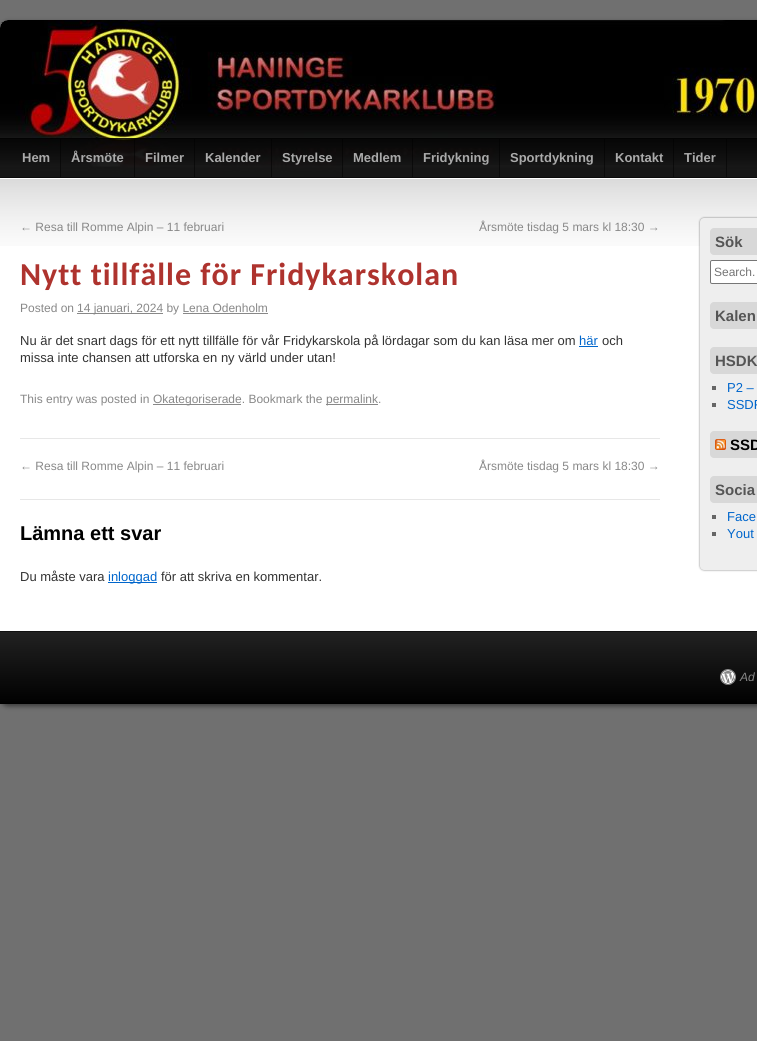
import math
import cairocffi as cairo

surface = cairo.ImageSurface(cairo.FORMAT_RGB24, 757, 1041)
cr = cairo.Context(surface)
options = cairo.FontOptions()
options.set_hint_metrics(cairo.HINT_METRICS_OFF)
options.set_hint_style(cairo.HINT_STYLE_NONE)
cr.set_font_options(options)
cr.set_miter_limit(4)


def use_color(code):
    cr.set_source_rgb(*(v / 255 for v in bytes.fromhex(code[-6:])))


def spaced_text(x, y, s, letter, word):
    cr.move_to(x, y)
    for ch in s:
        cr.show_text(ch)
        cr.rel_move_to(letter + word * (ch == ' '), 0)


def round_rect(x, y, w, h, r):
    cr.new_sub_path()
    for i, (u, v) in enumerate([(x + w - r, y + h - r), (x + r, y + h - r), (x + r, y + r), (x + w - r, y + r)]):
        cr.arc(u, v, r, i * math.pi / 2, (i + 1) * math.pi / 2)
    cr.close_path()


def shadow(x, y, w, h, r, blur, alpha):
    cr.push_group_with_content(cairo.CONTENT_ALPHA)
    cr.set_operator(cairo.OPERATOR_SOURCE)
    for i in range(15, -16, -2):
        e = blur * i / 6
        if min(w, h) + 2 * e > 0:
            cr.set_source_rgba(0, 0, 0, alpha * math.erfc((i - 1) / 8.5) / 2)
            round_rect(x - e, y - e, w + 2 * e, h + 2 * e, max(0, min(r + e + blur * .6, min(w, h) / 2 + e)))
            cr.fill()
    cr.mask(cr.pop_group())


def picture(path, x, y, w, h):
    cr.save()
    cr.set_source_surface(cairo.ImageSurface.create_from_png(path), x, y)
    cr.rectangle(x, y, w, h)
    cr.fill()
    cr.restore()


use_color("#707070")
cr.paint()
use_color("#000000")
shadow(0, 22, 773, 684, 8, 2.5, 0.5)
use_color("#ffffff")
round_rect(0, 20, 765, 684, 8)
cr.fill()
picture("img1.png", 0, 20, 757, 157)
cr.set_source_rgba(0, 0, 0, 0.75)
cr.rectangle(0, 138, 757, 39)
cr.fill()
cr.set_source_rgba(0, 0, 0, 0.5)
cr.rectangle(0, 138, 757, 1)
cr.fill()
use_color("#0b0b0b")
cr.rectangle(0, 177, 757, 1)
cr.fill()
cr.set_source_rgba(0, 0, 0, 0.5)
cr.rectangle(60, 139, 1, 38)
cr.fill()
cr.select_font_face("Liberation Sans", cairo.FONT_SLANT_NORMAL, cairo.FONT_WEIGHT_BOLD)
cr.set_font_size(13)
use_color("#aaaaaa")
cr.move_to(22, 162)
cr.show_text("Hem")
cr.set_source_rgba(0, 0, 0, 0.5)
cr.rectangle(134, 139, 1, 38)
cr.fill()
use_color("#aaaaaa")
cr.move_to(71, 162)
cr.show_text("Årsmöte")
cr.set_source_rgba(0, 0, 0, 0.5)
cr.rectangle(194, 139, 1, 38)
cr.fill()
use_color("#aaaaaa")
cr.move_to(145, 162)
cr.show_text("Filmer")
cr.set_source_rgba(0, 0, 0, 0.5)
cr.rectangle(271, 139, 1, 38)
cr.fill()
use_color("#aaaaaa")
cr.move_to(205, 162)
cr.show_text("Kalender")
cr.set_source_rgba(0, 0, 0, 0.5)
cr.rectangle(342, 139, 1, 38)
cr.fill()
use_color("#aaaaaa")
cr.move_to(282, 162)
cr.show_text("Styrelse")
cr.set_source_rgba(0, 0, 0, 0.5)
cr.rectangle(412, 139, 1, 38)
cr.fill()
use_color("#aaaaaa")
cr.move_to(353, 162)
cr.show_text("Medlem")
cr.set_source_rgba(0, 0, 0, 0.5)
cr.rectangle(499, 139, 1, 38)
cr.fill()
use_color("#aaaaaa")
cr.move_to(423, 162)
cr.show_text("Fridykning")
cr.set_source_rgba(0, 0, 0, 0.5)
cr.rectangle(604, 139, 1, 38)
cr.fill()
use_color("#aaaaaa")
cr.move_to(510, 162)
cr.show_text("Sportdykning")
cr.set_source_rgba(0, 0, 0, 0.5)
cr.rectangle(673, 139, 1, 38)
cr.fill()
use_color("#aaaaaa")
cr.move_to(615, 162)
cr.show_text("Kontakt")
cr.set_source_rgba(0, 0, 0, 0.5)
cr.rectangle(726, 139, 1, 38)
cr.fill()
use_color("#aaaaaa")
cr.move_to(684, 162)
cr.show_text("Tider")
picture("img2.png", 0, 179, 757, 67)
cr.select_font_face("Liberation Sans")
cr.set_font_size(12)
use_color("#888888")
cr.move_to(20, 231)
cr.show_text("← Resa till Romme Alpin – 11 februari")
cr.move_to(479, 231)
cr.show_text("Årsmöte tisdag 5 mars kl 18:30 →")
use_color("#e7e7e7")
cr.rectangle(20, 438, 640, 1)
cr.fill()
cr.select_font_face("Carlito", cairo.FONT_SLANT_NORMAL, cairo.FONT_WEIGHT_BOLD)
cr.set_font_size(32)
use_color("#ae332e")
spaced_text(20, 285, "Nytt tillfälle för Fridykarskolan", 1, 0)
cr.select_font_face("Liberation Sans")
cr.set_font_size(12)
use_color("#888888")
cr.move_to(20, 312)
cr.show_text("Posted on")
cr.rectangle(77, 313, 86, 1)
cr.fill()
cr.move_to(77, 312)
cr.show_text("14 januari, 2024 by Lena Odenholm")
cr.rectangle(183, 313, 85, 1)
cr.fill()
cr.set_font_size(13)
use_color("#333333")
cr.move_to(20, 345)
cr.show_text("Nu är det snart dags för ett nytt tillfälle för vår Fridykarskola på lördagar som du kan läsa mer om")
use_color("#0066cc")
cr.move_to(579, 345)
cr.show_text("här")
cr.rectangle(579, 346, 19, 1)
cr.fill()
use_color("#333333")
cr.move_to(602, 345)
cr.show_text("och")
cr.move_to(20, 362)
cr.show_text("missa inte chansen att utforska en ny värld under utan!")
cr.set_font_size(12)
use_color("#888888")
cr.move_to(20, 403)
cr.show_text("This entry was posted in")
cr.rectangle(153, 404, 88, 1)
cr.fill()
cr.move_to(153, 403)
cr.show_text("Okategoriserade. Bookmark the")
cr.rectangle(326, 404, 52, 1)
cr.fill()
cr.move_to(326, 403)
cr.show_text("permalink.")
cr.move_to(20, 470)
cr.show_text("← Resa till Romme Alpin – 11 februari")
cr.move_to(479, 470)
cr.show_text("Årsmöte tisdag 5 mars kl 18:30 →")
use_color("#e7e7e7")
cr.rectangle(20, 499, 640, 1)
cr.fill()
cr.select_font_face("Liberation Sans", cairo.FONT_SLANT_NORMAL, cairo.FONT_WEIGHT_BOLD)
cr.set_font_size(20)
use_color("#000000")
cr.move_to(20, 540)
cr.show_text("Lämna ett svar")
cr.select_font_face("Liberation Sans")
cr.set_font_size(13)
use_color("#333333")
cr.move_to(20, 581)
cr.show_text("Du måste vara")
use_color("#0066cc")
cr.rectangle(108, 582, 49, 1)
cr.fill()
cr.move_to(108, 581)
cr.show_text("inloggad")
use_color("#333333")
cr.move_to(161, 581)
cr.show_text("för att skriva en kommentar.")
use_color("#000000")
shadow(700, 218, 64, 352, 4, 1, 0.5)
use_color("#eeeeee")
round_rect(700, 218, 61, 352, 4)
cr.fill()
use_color("#d8d8d8")
round_rect(710, 228, 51, 27, 4)
cr.fill()
cr.select_font_face("Liberation Sans", cairo.FONT_SLANT_NORMAL, cairo.FONT_WEIGHT_BOLD)
cr.set_font_size(15)
use_color("#555555")
cr.move_to(715, 247)
cr.show_text("Sök")
use_color("#ffffff")
round_rect(710.5, 260.5, 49, 23, 1.5)
cr.fill_preserve()
use_color("#767676")
cr.set_line_width(1)
cr.stroke()
cr.select_font_face("Liberation Sans")
cr.set_font_size(12)
use_color("#757575")
cr.move_to(714, 276)
cr.show_text("Search.")
use_color("#d8d8d8")
round_rect(710, 302, 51, 27, 4)
cr.fill()
cr.select_font_face("Liberation Sans", cairo.FONT_SLANT_NORMAL, cairo.FONT_WEIGHT_BOLD)
cr.set_font_size(15)
use_color("#555555")
cr.move_to(715, 321)
cr.show_text("Kalen")
use_color("#d8d8d8")
round_rect(710, 347, 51, 27, 4)
cr.fill()
use_color("#555555")
cr.move_to(715, 366)
cr.show_text("HSDK")
use_color("#666666")
cr.rectangle(712, 386, 4, 4)
cr.fill()
cr.select_font_face("Liberation Sans")
cr.set_font_size(13)
use_color("#0066cc")
cr.move_to(727, 392)
cr.show_text("P2 –")
use_color("#666666")
cr.rectangle(712, 403, 4, 4)
cr.fill()
use_color("#0066cc")
cr.move_to(727, 409)
cr.show_text("SSDF")
use_color("#d8d8d8")
round_rect(710, 431, 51, 27, 4)
cr.fill()
picture("img3.png", 715, 439, 11, 11)
cr.select_font_face("Liberation Sans", cairo.FONT_SLANT_NORMAL, cairo.FONT_WEIGHT_BOLD)
cr.set_font_size(15)
use_color("#000000")
cr.move_to(730, 450)
cr.show_text("SSD")
use_color("#d8d8d8")
round_rect(710, 476, 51, 27, 4)
cr.fill()
use_color("#555555")
cr.move_to(715, 495)
cr.show_text("Socia")
use_color("#666666")
cr.rectangle(712, 515, 4, 4)
cr.fill()
cr.select_font_face("Liberation Sans")
cr.set_font_size(13)
use_color("#0066cc")
cr.move_to(727, 521)
cr.show_text("Face")
use_color("#666666")
cr.rectangle(712, 532, 4, 4)
cr.fill()
use_color("#0066cc")
cr.move_to(727, 538)
cr.show_text("Yout")
gradient = cairo.LinearGradient(0, 631, 0, 704)
gradient.add_color_stop_rgba(0, 0.133, 0.133, 0.133, 1)
gradient.add_color_stop_rgba(1, 0, 0, 0, 1)
cr.set_source(gradient)
cr.rectangle(0, 632, 757, 72)
cr.fill()
use_color("#111111")
cr.rectangle(0, 631, 757, 1)
cr.fill()
picture("img4.png", 720, 669, 16, 16)
cr.select_font_face("Liberation Sans", cairo.FONT_SLANT_ITALIC)
cr.set_font_size(12)
use_color("#888888")
cr.move_to(740, 681)
cr.show_text("Ad")
surface.write_to_png("result.png")
